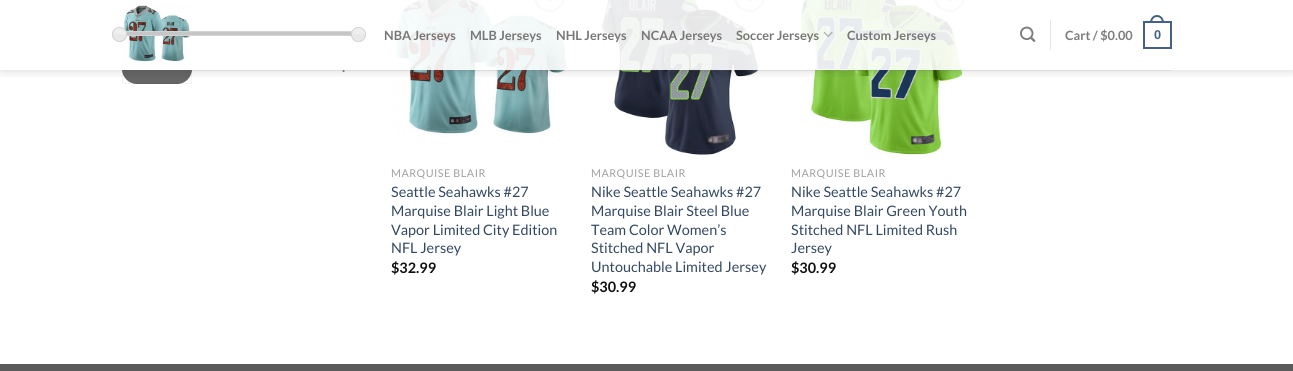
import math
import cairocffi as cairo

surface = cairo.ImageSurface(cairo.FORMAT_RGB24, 1293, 371)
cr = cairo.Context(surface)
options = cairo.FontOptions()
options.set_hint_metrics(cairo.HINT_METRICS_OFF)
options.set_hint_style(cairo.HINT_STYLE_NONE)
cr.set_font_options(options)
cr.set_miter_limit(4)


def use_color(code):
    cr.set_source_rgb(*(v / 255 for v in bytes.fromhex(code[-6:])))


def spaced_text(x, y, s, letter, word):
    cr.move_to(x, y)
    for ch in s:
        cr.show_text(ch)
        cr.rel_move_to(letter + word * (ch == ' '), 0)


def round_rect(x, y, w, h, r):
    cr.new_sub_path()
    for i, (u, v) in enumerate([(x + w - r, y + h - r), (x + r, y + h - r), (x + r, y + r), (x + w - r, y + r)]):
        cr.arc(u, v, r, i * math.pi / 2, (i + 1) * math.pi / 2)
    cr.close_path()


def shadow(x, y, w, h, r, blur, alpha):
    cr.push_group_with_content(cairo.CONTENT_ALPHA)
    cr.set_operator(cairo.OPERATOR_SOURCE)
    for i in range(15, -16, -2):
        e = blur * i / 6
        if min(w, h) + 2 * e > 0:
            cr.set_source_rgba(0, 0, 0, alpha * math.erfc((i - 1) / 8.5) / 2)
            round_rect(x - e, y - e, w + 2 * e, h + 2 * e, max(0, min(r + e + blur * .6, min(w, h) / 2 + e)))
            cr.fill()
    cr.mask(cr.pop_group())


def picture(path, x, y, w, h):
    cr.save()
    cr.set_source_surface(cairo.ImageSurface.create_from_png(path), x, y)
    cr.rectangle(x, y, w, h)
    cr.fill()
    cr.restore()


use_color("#ffffff")
cr.paint()
use_color("#666666")
round_rect(122, 54, 70, 30, 15)
cr.fill()
cr.rectangle(122.5, 54.5, 69, 29)
cr.set_source_rgba(0, 0, 0, 0.05)
cr.set_line_width(1)
cr.stroke()
picture("img7.png", 391, 0, 176, 135)
round_rect(535, -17, 29, 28, 14.5)
use_color("#c0c0c0")
cr.set_line_width(2)
cr.stroke()
picture("img6.png", 547, 0, 5, 2)
picture("img8.png", 601, 0, 158, 155)
round_rect(735, -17, 29, 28, 14.5)
cr.stroke()
picture("img6.png", 747, 0, 5, 2)
picture("img9.png", 800, 0, 163, 156)
round_rect(935, -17, 29, 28, 14.5)
cr.stroke()
picture("img6.png", 947, 0, 5, 2)
cr.save()
cr.rectangle(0, 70, 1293, 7)
cr.clip()
use_color("#000000")
shadow(1, 1, 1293, 70, 0, 5, 0.15)
cr.restore()
cr.set_source_rgba(1, 1, 1, 0.9)
cr.rectangle(122, 0, 843, 70)
cr.fill()
picture("img1.png", 122, 5, 70, 65)
cr.select_font_face("Lato", cairo.FONT_SLANT_NORMAL, cairo.FONT_WEIGHT_BOLD)
cr.set_font_size(12.75)
use_color("#777777")
cr.move_to(384, 40)
cr.show_text("NBA Jerseys")
cr.move_to(470, 40)
cr.show_text("MLB Jerseys")
cr.move_to(556, 40)
cr.show_text("NHL Jerseys")
cr.move_to(641, 40)
cr.show_text("NCAA Jerseys")
cr.move_to(736, 40)
cr.show_text("Soccer Jerseys")
picture("img2.png", 823, 31, 10, 6)
cr.move_to(847, 40)
cr.show_text("Custom Jerseys")
picture("img3.png", 1020, 26, 16, 16)
use_color("#e6e6e6")
cr.rectangle(1050, 20, 1, 30)
cr.fill()
use_color("#7d7d7d")
cr.move_to(1065, 40)
cr.show_text("Cart / $0.00")
cr.rectangle(1144, 22, 27, 26)
use_color("#446084")
cr.stroke()
cr.set_fill_rule(cairo.FILL_RULE_EVEN_ODD)
cr.new_path()
cr.move_to(1157, 15)
cr.curve_to(1161.5, 15, 1164, 19, 1164, 23)
cr.line_to(1150, 23)
cr.curve_to(1150, 19, 1152.5, 15, 1157, 15)
cr.close_path()
cr.move_to(1157, 17)
cr.curve_to(1160.5, 17, 1162, 20, 1162, 23)
cr.line_to(1152, 23)
cr.curve_to(1152, 20, 1153.5, 17, 1157, 17)
cr.close_path()
cr.fill()
cr.select_font_face("Liberation Sans", cairo.FONT_SLANT_NORMAL, cairo.FONT_WEIGHT_BOLD)
cr.move_to(1154, 39)
cr.show_text("0")
cr.set_source_rgba(0.467, 0.467, 0.467, 0.1)
cr.rectangle(192, 70, 980, 1)
cr.fill()
use_color("#f1f1f1")
cr.rectangle(122, 32, 230, 3)
cr.fill()
cr.rectangle(122.5, 31.5, 239, 4)
use_color("#d3d3d3")
cr.set_line_width(1)
cr.stroke()
cr.set_source_rgba(0.4, 0.4, 0.4, 0.5)
cr.rectangle(123, 32, 229, 3)
cr.fill()
cr.set_source_rgba(0.89, 0.89, 0.89, 0.5)
cr.rectangle(123, 32, 229, 3)
cr.fill()
picture("img4.png", 112, 27, 15, 15)
cr.arc(119.5, 34.5, 7, 0, 2 * math.pi)
use_color("#d3d3d3")
cr.stroke()
picture("img5.png", 351, 27, 15, 15)
cr.arc(358.5, 34.5, 7, 0, 2 * math.pi)
cr.stroke()
cr.select_font_face("Lato", cairo.FONT_SLANT_NORMAL, cairo.FONT_WEIGHT_BOLD)
cr.set_font_size(14)
use_color("#777777")
cr.move_to(342, 72)
cr.show_text(".")
cr.select_font_face("Lato")
cr.set_font_size(10.75)
use_color("#a0a0a0")
spaced_text(391, 177, "MARQUISE BLAIR", 0.5, 0)
cr.set_font_size(14.4)
use_color("#334862")
cr.move_to(391, 197)
cr.show_text("Seattle Seahawks #27")
cr.move_to(391, 216)
cr.show_text("Marquise Blair Light Blue")
cr.move_to(391, 235)
cr.show_text("Vapor Limited City Edition")
cr.move_to(391, 253)
cr.show_text("NFL Jersey")
cr.select_font_face("Lato", cairo.FONT_SLANT_NORMAL, cairo.FONT_WEIGHT_BOLD)
use_color("#111111")
cr.move_to(391, 273)
cr.show_text("$32.99")
cr.select_font_face("Lato")
cr.set_font_size(10.75)
use_color("#a0a0a0")
spaced_text(591, 177, "MARQUISE BLAIR", 0.5, 0)
cr.set_font_size(14.4)
use_color("#334862")
cr.move_to(591, 197)
cr.show_text("Nike Seattle Seahawks #27")
cr.move_to(591, 216)
cr.show_text("Marquise Blair Steel Blue")
cr.move_to(591, 235)
cr.show_text("Team Color Women’s")
cr.move_to(591, 253)
cr.show_text("Stitched NFL Vapor")
cr.move_to(591, 272)
cr.show_text("Untouchable Limited Jersey")
cr.select_font_face("Lato", cairo.FONT_SLANT_NORMAL, cairo.FONT_WEIGHT_BOLD)
use_color("#111111")
cr.move_to(591, 292)
cr.show_text("$30.99")
cr.select_font_face("Lato")
cr.set_font_size(10.75)
use_color("#a0a0a0")
spaced_text(791, 177, "MARQUISE BLAIR", 0.5, 0)
cr.set_font_size(14.4)
use_color("#334862")
cr.move_to(791, 197)
cr.show_text("Nike Seattle Seahawks #27")
cr.move_to(791, 216)
cr.show_text("Marquise Blair Green Youth")
cr.move_to(791, 235)
cr.show_text("Stitched NFL Limited Rush")
cr.move_to(791, 253)
cr.show_text("Jersey")
cr.select_font_face("Lato", cairo.FONT_SLANT_NORMAL, cairo.FONT_WEIGHT_BOLD)
use_color("#111111")
cr.move_to(791, 273)
cr.show_text("$30.99")
use_color("#5b5b5b")
cr.rectangle(0, 364, 1293, 7)
cr.fill()
surface.write_to_png("result.png")
